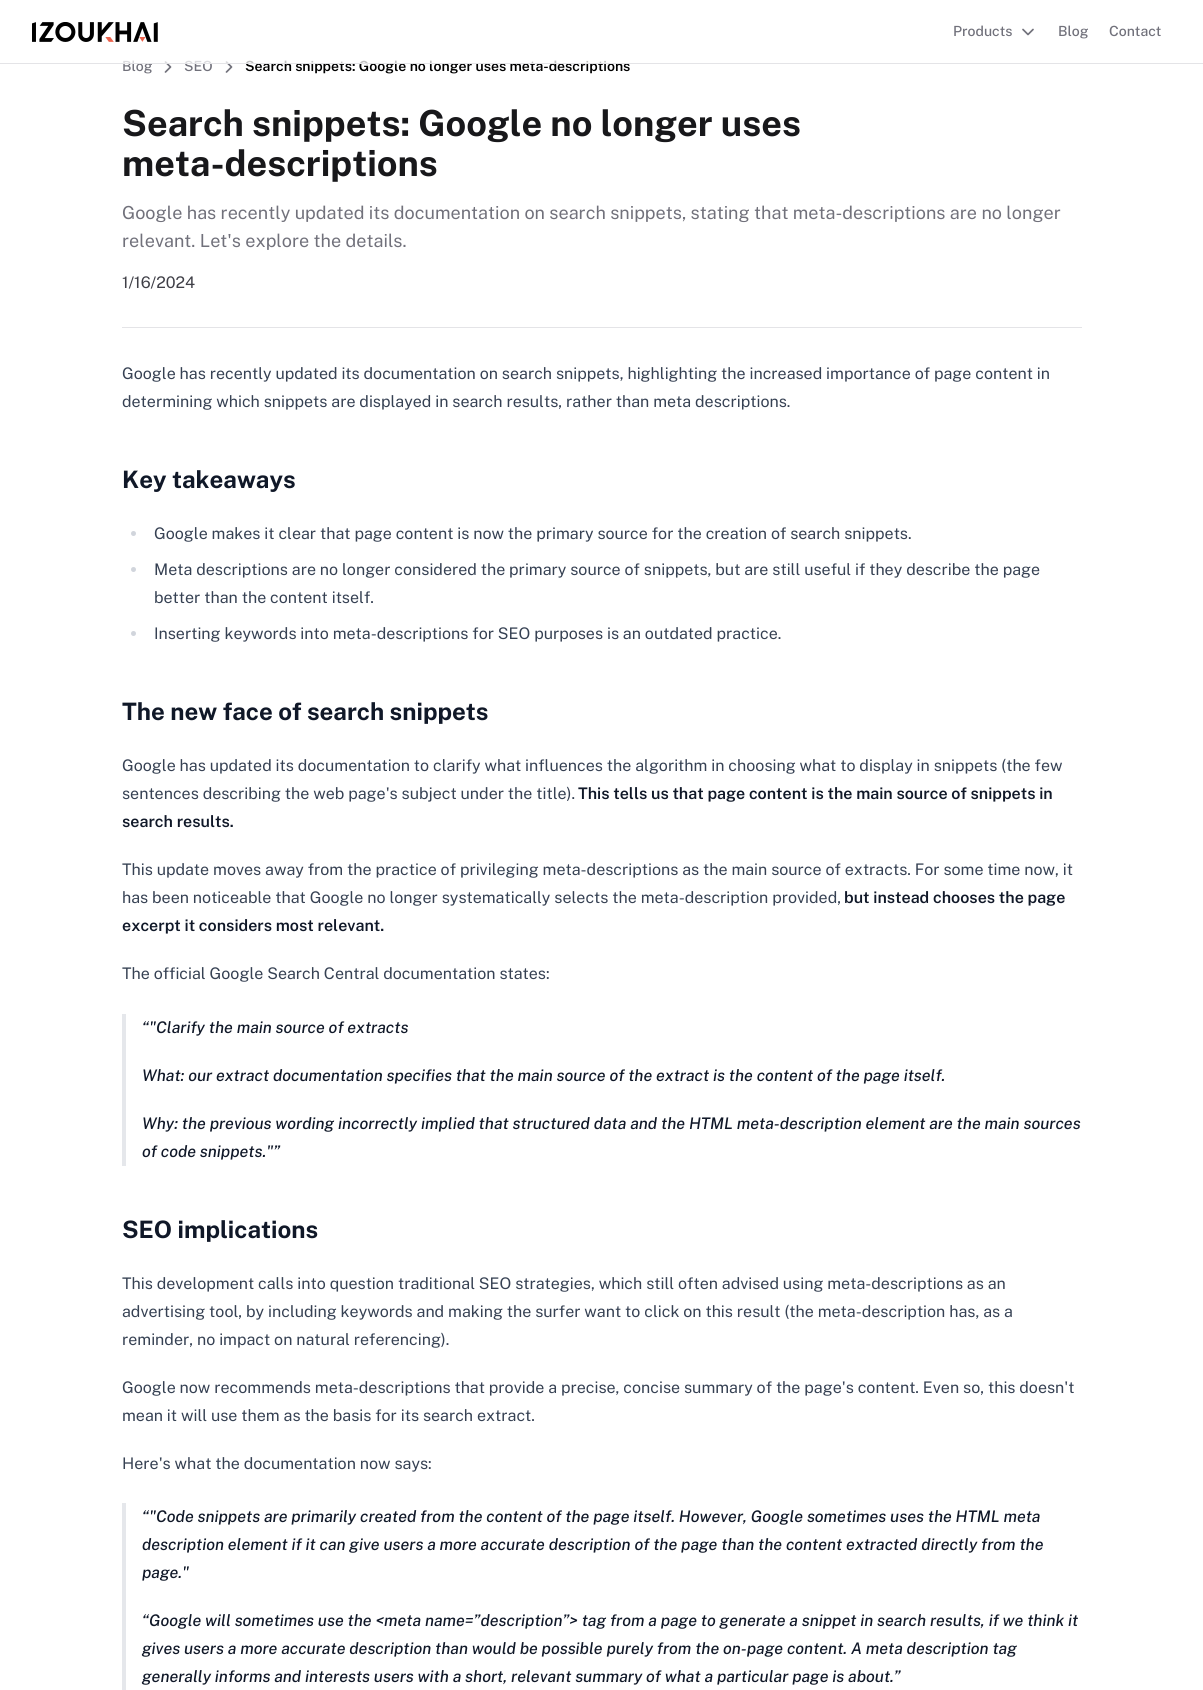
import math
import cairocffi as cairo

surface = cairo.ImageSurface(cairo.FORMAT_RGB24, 1203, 1690)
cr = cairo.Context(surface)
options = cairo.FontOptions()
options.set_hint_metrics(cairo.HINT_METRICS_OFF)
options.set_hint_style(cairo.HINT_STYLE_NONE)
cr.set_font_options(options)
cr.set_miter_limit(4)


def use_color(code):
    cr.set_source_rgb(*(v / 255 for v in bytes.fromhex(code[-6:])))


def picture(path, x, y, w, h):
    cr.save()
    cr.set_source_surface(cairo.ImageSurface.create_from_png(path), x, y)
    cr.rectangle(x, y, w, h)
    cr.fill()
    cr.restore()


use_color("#ffffff")
cr.paint()
cr.select_font_face("Public Sans Medium")
cr.set_font_size(14)
use_color("#71717b")
cr.move_to(122, 71)
cr.show_text("Blog")
cr.new_path()
cr.move_to(165.5, 72)
cr.line_to(170.5, 67)
cr.line_to(165.5, 62)
cr.set_line_width(1.7)
cr.set_line_cap(cairo.LINE_CAP_ROUND)
cr.set_line_join(cairo.LINE_JOIN_ROUND)
cr.stroke()
cr.move_to(184, 71)
cr.show_text("SEO")
cr.new_path()
cr.move_to(226.5, 72)
cr.line_to(231.5, 67)
cr.line_to(226.5, 62)
cr.stroke()
cr.select_font_face("Public Sans SemiBold")
use_color("#000000")
cr.move_to(245, 71)
cr.show_text("Search snippets: Google no longer uses meta-descriptions")
cr.set_source_rgba(1, 1, 1, 0.75)
cr.rectangle(122, 60, 484, 3)
cr.fill()
use_color("#e4e4e7")
cr.rectangle(0, 63, 1203, 1)
cr.fill()
picture("img1.png", 32, 22, 126, 20)
cr.select_font_face("Public Sans Medium")
use_color("#71717b")
cr.move_to(953, 36)
cr.show_text("Products")
cr.new_path()
cr.move_to(1023, 29.5)
cr.line_to(1028, 34.5)
cr.line_to(1033, 29.5)
cr.stroke()
cr.move_to(1058, 36)
cr.show_text("Blog")
cr.move_to(1109, 36)
cr.show_text("Contact")
use_color("#e4e4e7")
cr.rectangle(122, 327, 960, 1)
cr.fill()
cr.select_font_face("Public Sans", cairo.FONT_SLANT_NORMAL, cairo.FONT_WEIGHT_BOLD)
cr.set_font_size(36)
use_color("#18181b")
cr.move_to(122, 136)
cr.show_text("Search snippets: Google no longer uses")
cr.move_to(122, 176)
cr.show_text("meta-descriptions")
cr.select_font_face("Public Sans")
cr.set_font_size(18)
use_color("#71717b")
cr.move_to(122, 219)
cr.show_text("Google has recently updated its documentation on search snippets, stating that meta-descriptions are no longer")
cr.move_to(122, 247)
cr.show_text("relevant. Let's explore the details.")
cr.set_font_size(16)
use_color("#3f3f47")
cr.move_to(122, 288)
cr.show_text("1/16/2024")
use_color("#364153")
cr.move_to(122, 379)
cr.show_text("Google has recently updated its documentation on search snippets, highlighting the increased importance of page content in")
cr.move_to(122, 407)
cr.show_text("determining which snippets are displayed in search results, rather than meta descriptions.")
cr.select_font_face("Public Sans", cairo.FONT_SLANT_NORMAL, cairo.FONT_WEIGHT_BOLD)
cr.set_font_size(24)
use_color("#101828")
cr.move_to(122, 488)
cr.show_text("Key takeaways")
use_color("#d1d5dc")
cr.new_path()
cr.arc(133.5, 533.5, 2.5, 0, 2 * math.pi)
cr.fill()
cr.select_font_face("Public Sans")
cr.set_font_size(16)
use_color("#364153")
cr.move_to(154, 539)
cr.show_text("Google makes it clear that page content is now the primary source for the creation of search snippets.")
use_color("#d1d5dc")
cr.new_path()
cr.arc(133.5, 569.5, 2.5, 0, 2 * math.pi)
cr.fill()
use_color("#364153")
cr.move_to(154, 575)
cr.show_text("Meta descriptions are no longer considered the primary source of snippets, but are still useful if they describe the page")
cr.move_to(154, 603)
cr.show_text("better than the content itself.")
use_color("#d1d5dc")
cr.new_path()
cr.arc(133.5, 633.5, 2.5, 0, 2 * math.pi)
cr.fill()
use_color("#364153")
cr.move_to(154, 639)
cr.show_text("Inserting keywords into meta-descriptions for SEO purposes is an outdated practice.")
cr.select_font_face("Public Sans", cairo.FONT_SLANT_NORMAL, cairo.FONT_WEIGHT_BOLD)
cr.set_font_size(24)
use_color("#101828")
cr.move_to(122, 720)
cr.show_text("The new face of search snippets")
cr.select_font_face("Public Sans")
cr.set_font_size(16)
use_color("#364153")
cr.move_to(122, 771)
cr.show_text("Google has updated its documentation to clarify what influences the algorithm in choosing what to display in snippets (the few")
cr.move_to(122, 799)
cr.show_text("sentences describing the web page's subject under the title).")
cr.select_font_face("Public Sans SemiBold")
use_color("#101828")
cr.move_to(578, 799)
cr.show_text("This tells us that page content is the main source of snippets in")
cr.move_to(122, 827)
cr.show_text("search results.")
cr.select_font_face("Public Sans")
use_color("#364153")
cr.move_to(122, 875)
cr.show_text("This update moves away from the practice of privileging meta-descriptions as the main source of extracts. For some time now, it")
cr.move_to(122, 903)
cr.show_text("has been noticeable that Google no longer systematically selects the meta-description provided,")
cr.select_font_face("Public Sans SemiBold")
use_color("#101828")
cr.move_to(844, 903)
cr.show_text("but instead chooses the page")
cr.move_to(122, 931)
cr.show_text("excerpt it considers most relevant.")
cr.select_font_face("Public Sans")
use_color("#364153")
cr.move_to(122, 979)
cr.show_text("The official Google Search Central documentation states:")
use_color("#e5e7eb")
cr.rectangle(122, 1014, 4, 152)
cr.fill()
cr.select_font_face("Public Sans Medium", cairo.FONT_SLANT_ITALIC)
use_color("#101828")
cr.move_to(142, 1033)
cr.show_text("“\"Clarify the main source of extracts")
cr.move_to(142, 1081)
cr.show_text("What: our extract documentation specifies that the main source of the extract is the content of the page itself.")
cr.move_to(142, 1129)
cr.show_text("Why: the previous wording incorrectly implied that structured data and the HTML meta-description element are the main sources")
cr.move_to(142, 1157)
cr.show_text("of code snippets.\"”")
cr.select_font_face("Public Sans", cairo.FONT_SLANT_NORMAL, cairo.FONT_WEIGHT_BOLD)
cr.set_font_size(24)
cr.move_to(122, 1238)
cr.show_text("SEO implications")
cr.select_font_face("Public Sans")
cr.set_font_size(16)
use_color("#364153")
cr.move_to(122, 1289)
cr.show_text("This development calls into question traditional SEO strategies, which still often advised using meta-descriptions as an")
cr.move_to(122, 1317)
cr.show_text("advertising tool, by including keywords and making the surfer want to click on this result (the meta-description has, as a")
cr.move_to(122, 1345)
cr.show_text("reminder, no impact on natural referencing).")
cr.move_to(122, 1393)
cr.show_text("Google now recommends meta-descriptions that provide a precise, concise summary of the page's content. Even so, this doesn't")
cr.move_to(122, 1421)
cr.show_text("mean it will use them as the basis for its search extract.")
cr.move_to(122, 1469)
cr.show_text("Here's what the documentation now says:")
use_color("#e5e7eb")
cr.rectangle(122, 1503, 4, 187)
cr.fill()
cr.select_font_face("Public Sans Medium", cairo.FONT_SLANT_ITALIC)
use_color("#101828")
cr.move_to(142, 1522)
cr.show_text("“\"Code snippets are primarily created from the content of the page itself. However, Google sometimes uses the HTML meta")
cr.move_to(142, 1550)
cr.show_text("description element if it can give users a more accurate description of the page than the content extracted directly from the")
cr.move_to(142, 1578)
cr.show_text("page.\"")
cr.move_to(142, 1626)
cr.show_text("“Google will sometimes use the <meta name=”description”> tag from a page to generate a snippet in search results, if we think it")
cr.move_to(142, 1654)
cr.show_text("gives users a more accurate description than would be possible purely from the on-page content. A meta description tag")
cr.move_to(142, 1682)
cr.show_text("generally informs and interests users with a short, relevant summary of what a particular page is about.”")
surface.write_to_png("result.png")
